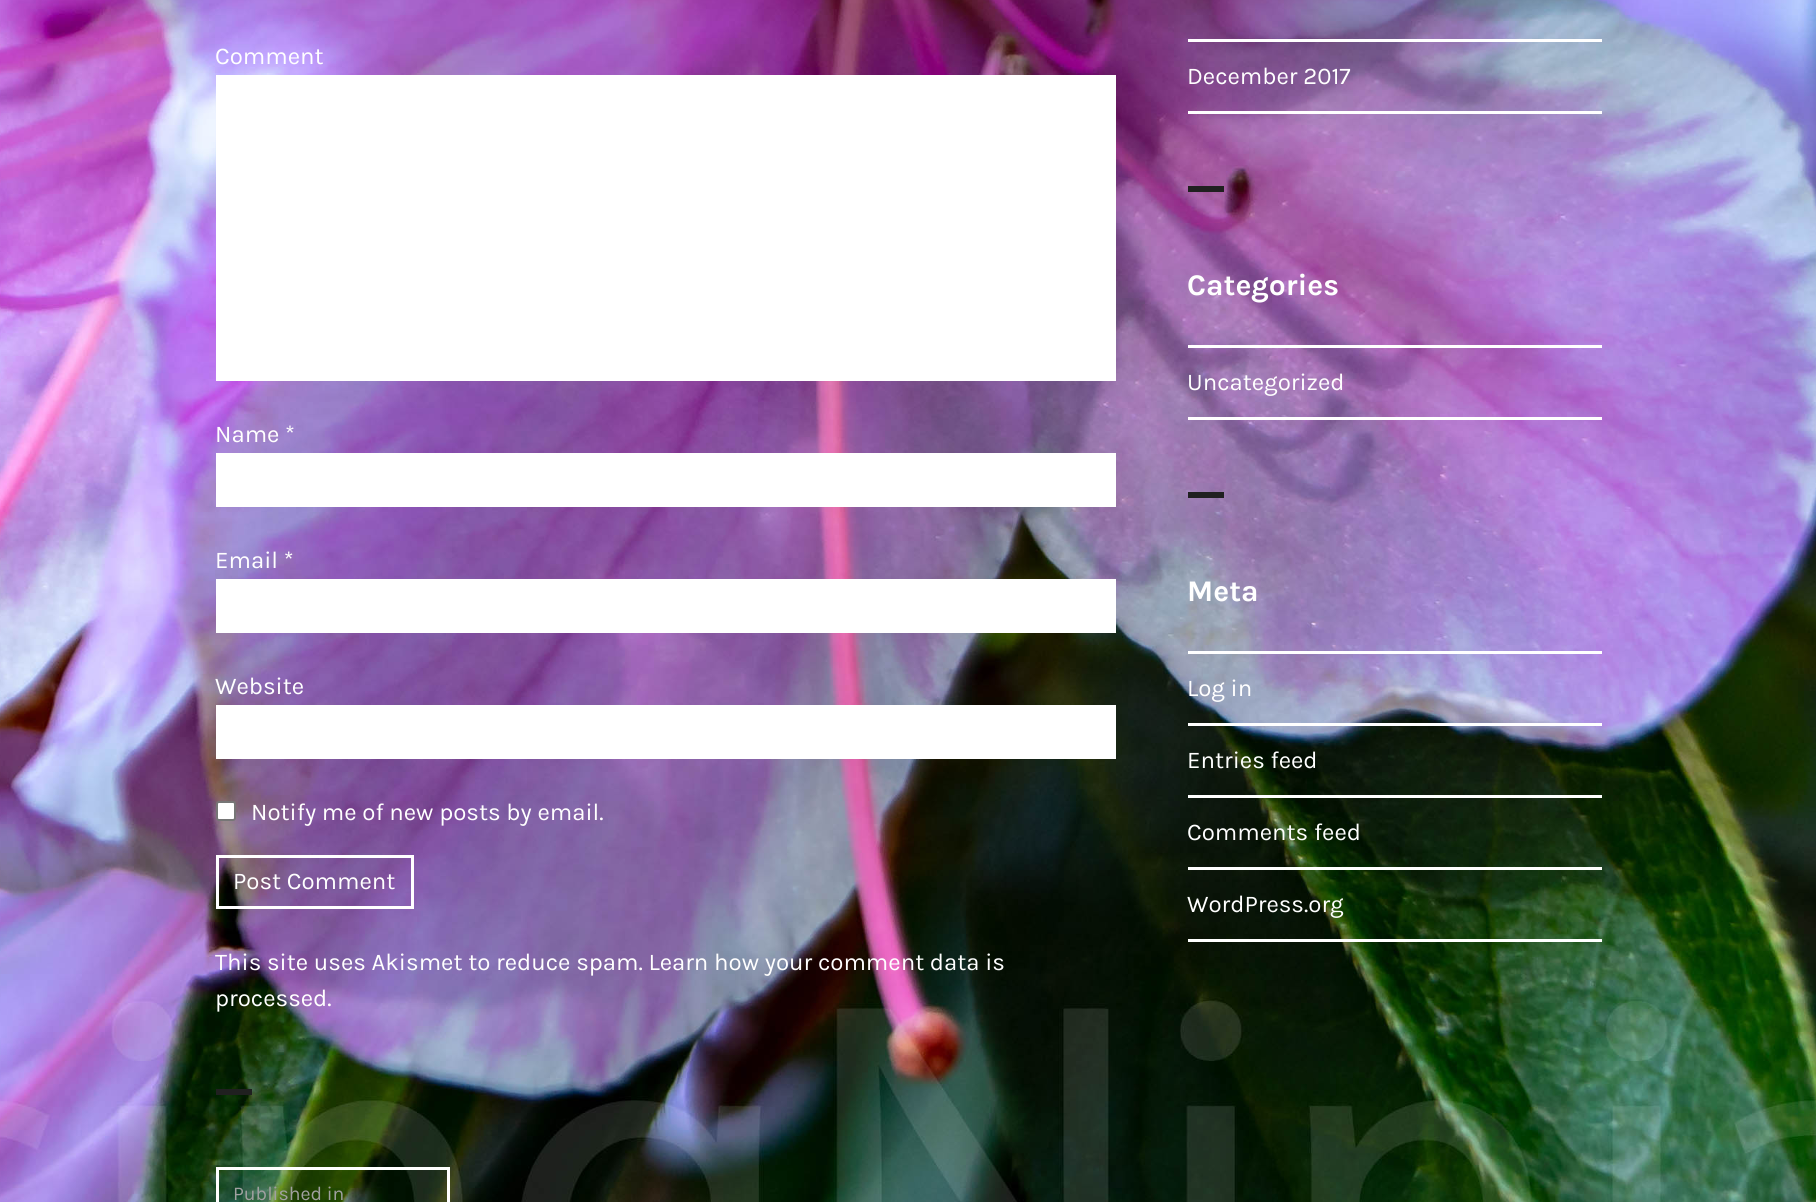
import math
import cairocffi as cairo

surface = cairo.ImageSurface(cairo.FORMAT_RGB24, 1816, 1202)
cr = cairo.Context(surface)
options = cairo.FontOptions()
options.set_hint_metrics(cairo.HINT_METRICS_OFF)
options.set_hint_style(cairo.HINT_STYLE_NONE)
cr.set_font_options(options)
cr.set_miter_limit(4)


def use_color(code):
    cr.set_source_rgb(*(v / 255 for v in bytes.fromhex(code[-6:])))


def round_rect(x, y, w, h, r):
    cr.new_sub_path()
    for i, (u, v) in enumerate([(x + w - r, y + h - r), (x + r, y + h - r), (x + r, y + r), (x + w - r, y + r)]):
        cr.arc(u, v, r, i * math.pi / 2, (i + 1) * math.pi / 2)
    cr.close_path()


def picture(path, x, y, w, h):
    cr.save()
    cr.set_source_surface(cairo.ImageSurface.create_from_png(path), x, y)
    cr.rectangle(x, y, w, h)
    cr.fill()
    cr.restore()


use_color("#ffffff")
cr.paint()
picture("img1.png", 0, 0, 1816, 1202)
cr.select_font_face("Karla")
cr.set_font_size(24)
use_color("#ffffff")
cr.move_to(215, 64)
cr.show_text("Comment")
cr.rectangle(216, 75, 900, 306)
cr.fill()
cr.move_to(215, 442)
cr.show_text("Name *")
cr.rectangle(216, 453, 900, 54)
cr.fill()
cr.move_to(215, 568)
cr.show_text("Email *")
cr.rectangle(216, 579, 900, 54)
cr.fill()
cr.move_to(215, 694)
cr.show_text("Website")
cr.rectangle(216, 705, 900, 54)
cr.fill()
round_rect(217, 802, 18, 18, 2)
cr.fill_preserve()
use_color("#767676")
cr.stroke()
use_color("#ffffff")
cr.move_to(251, 820)
cr.show_text("Notify me of new posts by email.")
cr.rectangle(217.5, 856.5, 195, 51)
cr.set_line_width(3)
cr.stroke()
cr.move_to(233, 889)
cr.show_text("Post Comment")
cr.move_to(215, 970)
cr.show_text("This site uses Akismet to reduce spam. Learn how your comment data is")
cr.move_to(215, 1006)
cr.show_text("processed.")
use_color("#202020")
cr.rectangle(216, 1089, 36, 6)
cr.fill()
cr.rectangle(217.5, 1168.5, 231, 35)
use_color("#ffffff")
cr.stroke()
cr.set_font_size(19.5)
use_color("#a0a0a0")
cr.move_to(233, 1200)
cr.show_text("Published in")
use_color("#ffffff")
cr.rectangle(1188, 111, 414, 3)
cr.fill()
cr.rectangle(1188, 39, 414, 3)
cr.fill()
cr.set_font_size(24)
cr.move_to(1187, 84)
cr.show_text("December 2017")
use_color("#202020")
cr.rectangle(1188, 186, 36, 6)
cr.fill()
cr.select_font_face("Karla", cairo.FONT_SLANT_NORMAL, cairo.FONT_WEIGHT_BOLD)
cr.set_font_size(30)
use_color("#ffffff")
cr.move_to(1187, 295)
cr.show_text("Categories")
cr.rectangle(1188, 417, 414, 3)
cr.fill()
cr.rectangle(1188, 345, 414, 3)
cr.fill()
cr.select_font_face("Karla")
cr.set_font_size(24)
cr.move_to(1187, 390)
cr.show_text("Uncategorized")
use_color("#202020")
cr.rectangle(1188, 492, 36, 6)
cr.fill()
cr.select_font_face("Karla", cairo.FONT_SLANT_NORMAL, cairo.FONT_WEIGHT_BOLD)
cr.set_font_size(30)
use_color("#ffffff")
cr.move_to(1187, 601)
cr.show_text("Meta")
cr.rectangle(1188, 939, 414, 3)
cr.fill()
cr.rectangle(1188, 651, 414, 3)
cr.fill()
cr.select_font_face("Karla")
cr.set_font_size(24)
cr.move_to(1187, 696)
cr.show_text("Log in")
cr.rectangle(1188, 723, 414, 3)
cr.fill()
cr.move_to(1187, 768)
cr.show_text("Entries feed")
cr.rectangle(1188, 795, 414, 3)
cr.fill()
cr.move_to(1187, 840)
cr.show_text("Comments feed")
cr.rectangle(1188, 867, 414, 3)
cr.fill()
cr.move_to(1187, 912)
cr.show_text("WordPress.org")
surface.write_to_png("result.png")
